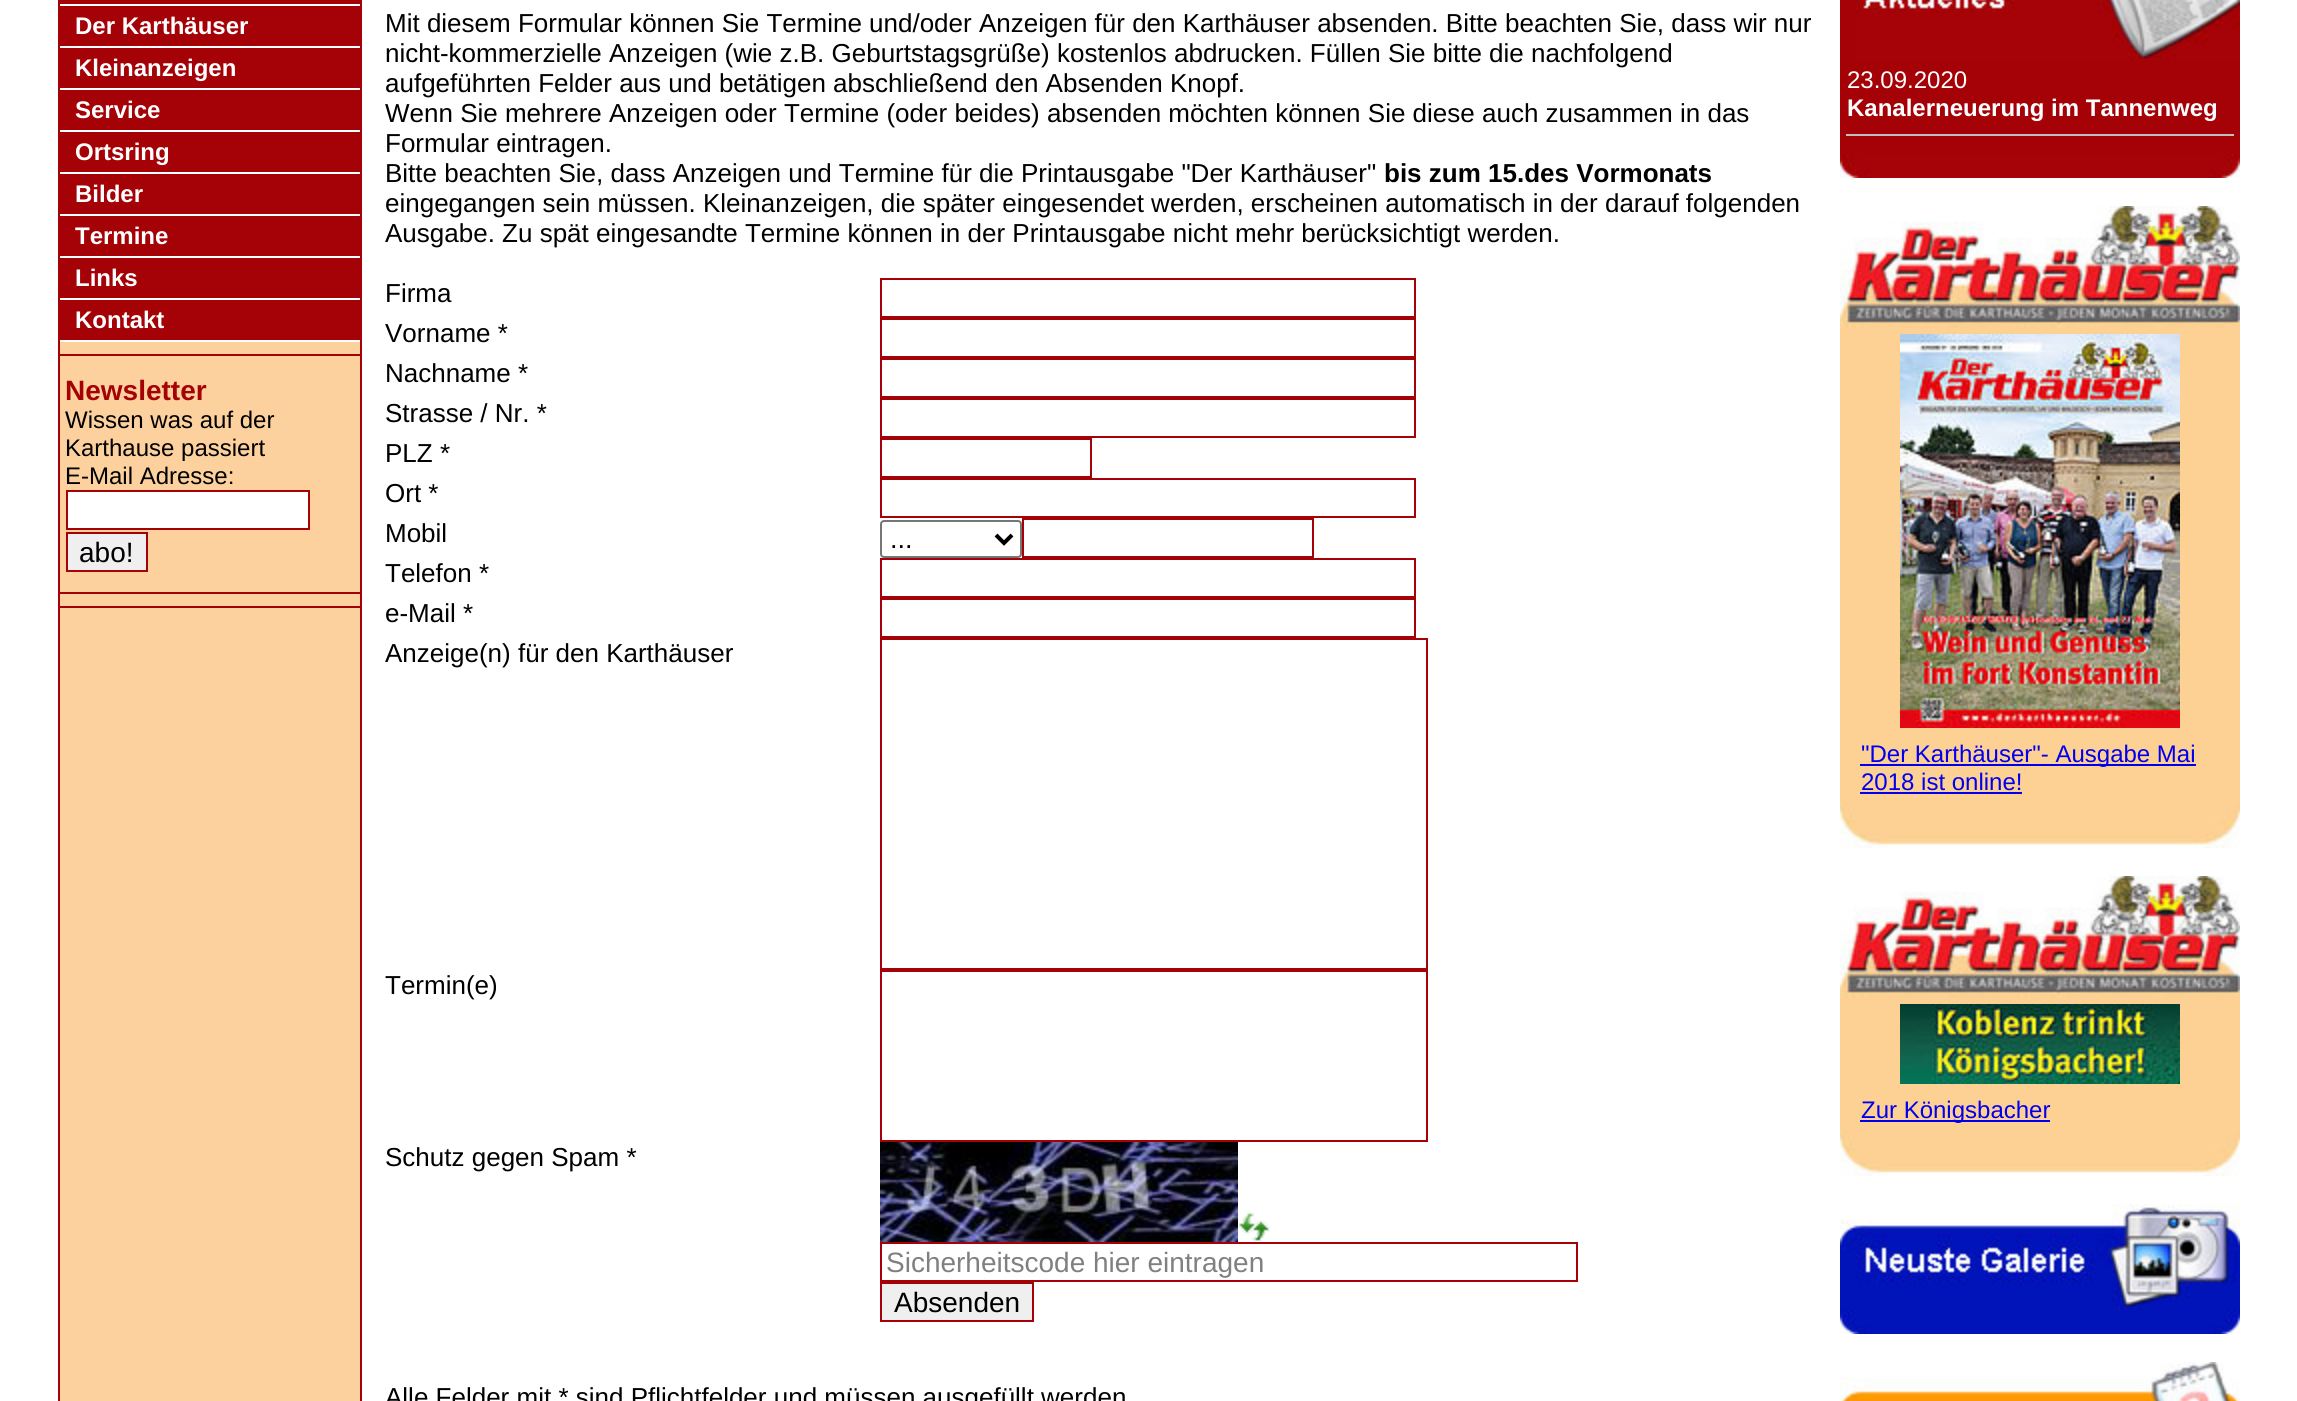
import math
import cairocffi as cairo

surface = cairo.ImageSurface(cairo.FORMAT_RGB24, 2297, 1401)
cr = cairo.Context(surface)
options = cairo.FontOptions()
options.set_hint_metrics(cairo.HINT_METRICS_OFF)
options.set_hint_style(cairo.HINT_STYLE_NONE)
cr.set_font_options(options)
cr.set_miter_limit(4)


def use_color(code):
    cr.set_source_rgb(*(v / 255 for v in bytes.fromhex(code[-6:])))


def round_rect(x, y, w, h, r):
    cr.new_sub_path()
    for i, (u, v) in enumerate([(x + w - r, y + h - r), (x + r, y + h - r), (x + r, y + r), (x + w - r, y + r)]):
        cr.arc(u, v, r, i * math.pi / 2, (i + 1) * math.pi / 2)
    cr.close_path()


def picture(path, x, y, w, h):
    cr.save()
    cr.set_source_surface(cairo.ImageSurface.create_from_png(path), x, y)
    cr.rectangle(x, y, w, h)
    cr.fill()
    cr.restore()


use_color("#ffffff")
cr.paint()
use_color("#fdd19e")
cr.rectangle(60, 342, 300, 1059)
cr.fill()
use_color("#a50207")
cr.rectangle(360, 0, 2, 1401)
cr.fill()
cr.rectangle(58, 0, 2, 1401)
cr.fill()
cr.rectangle(60, 0, 300, 4)
cr.fill()
cr.rectangle(60, 6, 300, 40)
cr.fill()
cr.select_font_face("Liberation Sans", cairo.FONT_SLANT_NORMAL, cairo.FONT_WEIGHT_BOLD)
cr.set_font_size(24)
use_color("#ffffff")
cr.move_to(75, 34)
cr.show_text("Der Karthäuser")
use_color("#a50207")
cr.rectangle(60, 48, 300, 40)
cr.fill()
use_color("#ffffff")
cr.move_to(75, 76)
cr.show_text("Kleinanzeigen")
use_color("#a50207")
cr.rectangle(60, 90, 300, 40)
cr.fill()
use_color("#ffffff")
cr.move_to(75, 118)
cr.show_text("Service")
use_color("#a50207")
cr.rectangle(60, 132, 300, 40)
cr.fill()
use_color("#ffffff")
cr.move_to(75, 160)
cr.show_text("Ortsring")
use_color("#a50207")
cr.rectangle(60, 174, 300, 40)
cr.fill()
use_color("#ffffff")
cr.move_to(75, 202)
cr.show_text("Bilder")
use_color("#a50207")
cr.rectangle(60, 216, 300, 40)
cr.fill()
use_color("#ffffff")
cr.move_to(75, 244)
cr.show_text("Termine")
use_color("#a50207")
cr.rectangle(60, 258, 300, 40)
cr.fill()
use_color("#ffffff")
cr.move_to(75, 286)
cr.show_text("Links")
use_color("#a50207")
cr.rectangle(60, 300, 300, 40)
cr.fill()
use_color("#ffffff")
cr.move_to(75, 328)
cr.show_text("Kontakt")
use_color("#a50207")
cr.rectangle(60, 354, 300, 2)
cr.fill()
cr.set_font_size(28)
cr.move_to(65, 400)
cr.show_text("Newsletter")
cr.select_font_face("Liberation Sans")
cr.set_font_size(24)
use_color("#000000")
cr.move_to(65, 428)
cr.show_text("Wissen was auf der")
cr.move_to(65, 456)
cr.show_text("Karthause passiert")
cr.move_to(65, 484)
cr.show_text("E-Mail Adresse:")
use_color("#ffffff")
cr.rectangle(67, 491, 242, 38)
cr.fill_preserve()
use_color("#a50207")
cr.stroke()
use_color("#efefef")
cr.rectangle(67, 533, 80, 38)
cr.fill_preserve()
use_color("#a50207")
cr.stroke()
cr.set_font_size(28)
use_color("#000000")
cr.move_to(79, 562)
cr.show_text("abo!")
use_color("#a50207")
cr.rectangle(60, 592, 300, 2)
cr.fill()
cr.rectangle(60, 606, 300, 2)
cr.fill()
cr.set_font_size(26)
use_color("#000000")
cr.move_to(385, 32)
cr.show_text("Mit diesem Formular können Sie Termine und/oder Anzeigen für den Karthäuser absenden. Bitte beachten Sie, dass wir nur")
cr.move_to(385, 62)
cr.show_text("nicht-kommerzielle Anzeigen (wie z.B. Geburtstagsgrüße) kostenlos abdrucken. Füllen Sie bitte die nachfolgend")
cr.move_to(385, 92)
cr.show_text("aufgeführten Felder aus und betätigen abschließend den Absenden Knopf.")
cr.move_to(385, 122)
cr.show_text("Wenn Sie mehrere Anzeigen oder Termine (oder beides) absenden möchten können Sie diese auch zusammen in das")
cr.move_to(385, 152)
cr.show_text("Formular eintragen.")
cr.move_to(385, 182)
cr.show_text("Bitte beachten Sie, dass Anzeigen und Termine für die Printausgabe \"Der Karthäuser\"")
cr.select_font_face("Liberation Sans", cairo.FONT_SLANT_NORMAL, cairo.FONT_WEIGHT_BOLD)
cr.move_to(1384, 182)
cr.show_text("bis zum 15.des Vormonats")
cr.select_font_face("Liberation Sans")
cr.move_to(385, 212)
cr.show_text("eingegangen sein müssen. Kleinanzeigen, die später eingesendet werden, erscheinen automatisch in der darauf folgenden")
cr.move_to(385, 242)
cr.show_text("Ausgabe. Zu spät eingesandte Termine können in der Printausgabe nicht mehr berücksichtigt werden.")
cr.move_to(385, 302)
cr.show_text("Firma")
cr.rectangle(881, 279, 534, 38)
use_color("#a50207")
cr.stroke()
use_color("#000000")
cr.move_to(385, 342)
cr.show_text("Vorname *")
cr.rectangle(881, 319, 534, 38)
use_color("#a50207")
cr.stroke()
use_color("#000000")
cr.move_to(385, 382)
cr.show_text("Nachname *")
cr.rectangle(881, 359, 534, 38)
use_color("#a50207")
cr.stroke()
use_color("#000000")
cr.move_to(385, 422)
cr.show_text("Strasse / Nr. *")
cr.rectangle(881, 399, 534, 38)
use_color("#a50207")
cr.stroke()
use_color("#000000")
cr.move_to(385, 462)
cr.show_text("PLZ *")
cr.rectangle(881, 439, 210, 38)
use_color("#a50207")
cr.stroke()
use_color("#000000")
cr.move_to(385, 502)
cr.show_text("Ort *")
cr.rectangle(881, 479, 534, 38)
use_color("#a50207")
cr.stroke()
use_color("#000000")
cr.move_to(385, 542)
cr.show_text("Mobil")
round_rect(881, 521, 140, 36, 3)
use_color("#767676")
cr.stroke()
cr.new_path()
cr.move_to(996, 535)
cr.line_to(1004, 543)
cr.line_to(1012, 535)
use_color("#000000")
cr.set_line_width(4)
cr.stroke()
cr.set_font_size(27)
cr.move_to(890, 548)
cr.show_text("...")
cr.rectangle(1023, 519, 290, 38)
use_color("#a50207")
cr.set_line_width(2)
cr.stroke()
cr.set_font_size(26)
use_color("#000000")
cr.move_to(385, 582)
cr.show_text("Telefon *")
cr.rectangle(881, 559, 534, 38)
use_color("#a50207")
cr.stroke()
use_color("#000000")
cr.move_to(385, 622)
cr.show_text("e-Mail *")
cr.rectangle(881, 599, 534, 38)
use_color("#a50207")
cr.stroke()
use_color("#000000")
cr.move_to(385, 662)
cr.show_text("Anzeige(n) für den Karthäuser")
cr.rectangle(881, 639, 546, 330)
use_color("#a50207")
cr.stroke()
use_color("#000000")
cr.move_to(385, 994)
cr.show_text("Termin(e)")
cr.rectangle(881, 971, 546, 170)
use_color("#a50207")
cr.stroke()
use_color("#000000")
cr.move_to(385, 1166)
cr.show_text("Schutz gegen Spam *")
picture("img1.png", 880, 1142, 358, 100)
picture("img2.png", 1238, 1212, 32, 30)
cr.rectangle(881, 1243, 696, 38)
use_color("#a50207")
cr.stroke()
cr.set_font_size(28)
use_color("#808080")
cr.move_to(886, 1272)
cr.show_text("Sicherheitscode hier eintragen")
use_color("#efefef")
cr.rectangle(881, 1283, 152, 38)
cr.fill_preserve()
use_color("#a50207")
cr.stroke()
use_color("#000000")
cr.move_to(894, 1312)
cr.show_text("Absenden")
cr.set_font_size(26)
cr.move_to(385, 1406)
cr.show_text("Alle Felder mit * sind Pflichtfelder und müssen ausgefüllt werden")
use_color("#a50207")
cr.rectangle(1840, 0, 400, 154)
cr.fill()
picture("img3.png", 1855, 0, 385, 60)
cr.set_font_size(24)
use_color("#ffffff")
cr.move_to(1847, 88)
cr.show_text("23.09.2020")
cr.select_font_face("Liberation Sans", cairo.FONT_SLANT_NORMAL, cairo.FONT_WEIGHT_BOLD)
cr.move_to(1847, 116)
cr.show_text("Kanalerneuerung im Tannenweg")
use_color("#c0c0c0")
cr.rectangle(1846, 134, 388, 2)
cr.fill()
picture("img4.png", 1840, 154, 400, 24)
use_color("#fdd194")
cr.rectangle(1840, 328, 400, 474)
cr.fill()
picture("img5.png", 1840, 206, 400, 122)
picture("img6.png", 1900, 334, 280, 394)
use_color("#0000ee")
cr.rectangle(1860, 764, 336, 2)
cr.fill()
cr.select_font_face("Liberation Sans")
cr.move_to(1861, 762)
cr.show_text("\"Der Karthäuser\"- Ausgabe Mai")
cr.move_to(1861, 790)
cr.show_text("2018 ist online!")
cr.rectangle(1860, 792, 162, 2)
cr.fill()
picture("img7.png", 1840, 802, 400, 46)
use_color("#fdd194")
cr.rectangle(1840, 998, 400, 132)
cr.fill()
picture("img5.png", 1840, 876, 400, 122)
picture("img8.png", 1900, 1004, 280, 80)
use_color("#0000ee")
cr.rectangle(1860, 1120, 190, 2)
cr.fill()
cr.move_to(1861, 1118)
cr.show_text("Zur Königsbacher")
picture("img7.png", 1840, 1130, 400, 46)
picture("img9.png", 1840, 1204, 400, 106)
picture("img10.png", 1840, 1310, 400, 24)
picture("img11.png", 1840, 1362, 400, 39)
surface.write_to_png("result.png")
